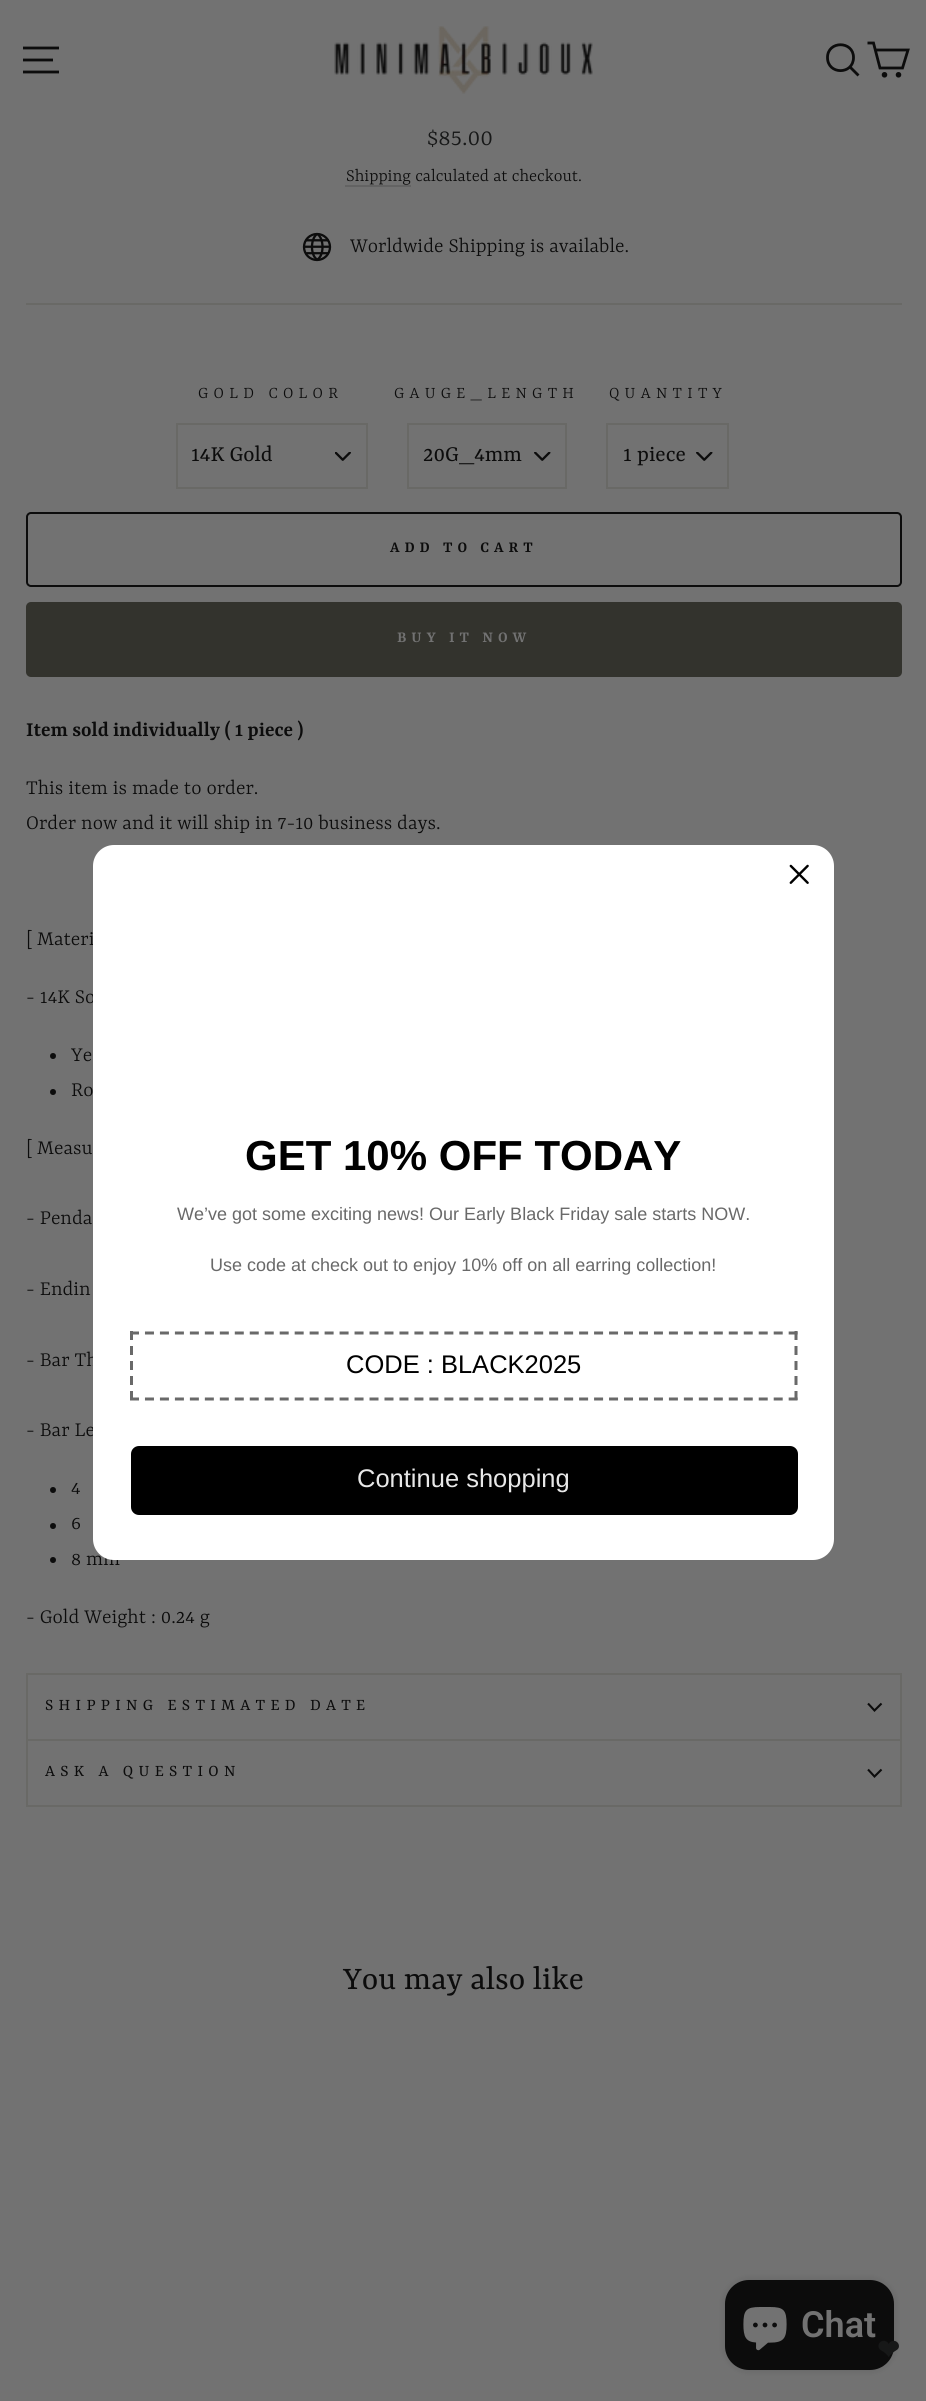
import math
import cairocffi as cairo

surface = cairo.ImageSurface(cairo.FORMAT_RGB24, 926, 2401)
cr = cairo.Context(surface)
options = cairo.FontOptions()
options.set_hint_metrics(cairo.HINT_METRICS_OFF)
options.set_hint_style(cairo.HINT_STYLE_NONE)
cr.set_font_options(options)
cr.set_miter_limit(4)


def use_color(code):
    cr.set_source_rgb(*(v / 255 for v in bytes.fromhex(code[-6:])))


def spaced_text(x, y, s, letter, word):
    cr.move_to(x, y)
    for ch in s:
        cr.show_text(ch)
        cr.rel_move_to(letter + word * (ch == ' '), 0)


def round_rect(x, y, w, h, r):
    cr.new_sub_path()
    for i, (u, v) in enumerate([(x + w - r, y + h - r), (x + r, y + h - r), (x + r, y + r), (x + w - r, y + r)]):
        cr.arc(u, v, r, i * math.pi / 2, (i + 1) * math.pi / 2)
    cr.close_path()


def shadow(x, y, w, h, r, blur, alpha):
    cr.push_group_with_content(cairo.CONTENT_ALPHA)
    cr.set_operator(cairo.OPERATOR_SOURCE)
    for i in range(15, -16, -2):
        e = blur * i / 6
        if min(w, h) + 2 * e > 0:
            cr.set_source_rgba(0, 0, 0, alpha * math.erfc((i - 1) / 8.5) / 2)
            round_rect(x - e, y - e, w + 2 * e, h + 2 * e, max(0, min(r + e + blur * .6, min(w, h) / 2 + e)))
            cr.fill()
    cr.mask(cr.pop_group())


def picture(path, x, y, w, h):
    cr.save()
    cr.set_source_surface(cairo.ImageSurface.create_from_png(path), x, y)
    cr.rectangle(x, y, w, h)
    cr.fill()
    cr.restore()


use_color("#727272")
cr.paint()
cr.new_path()
cr.move_to(23, 48)
cr.line_to(59, 48)
cr.move_to(23, 60)
cr.line_to(53, 60)
cr.move_to(23, 72)
cr.line_to(59, 72)
use_color("#0c0c0c")
cr.set_line_width(2.8)
cr.stroke()
picture("img1.png", 334, 26, 259, 68)
cr.new_path()
cr.move_to(853.5, 57.5)
cr.curve_to(853.5, 75, 827.5, 75, 827.5, 57.5)
cr.curve_to(827.5, 40.5, 853.5, 40.5, 853.5, 57.5)
cr.close_path()
cr.move_to(858.5, 75.5)
cr.line_to(850, 67)
cr.stroke()
cr.new_path()
cr.move_to(875.5, 50)
cr.line_to(908, 50)
cr.line_to(902.5, 68)
cr.line_to(880, 68)
cr.line_to(873.5, 43)
cr.line_to(867.5, 43)
cr.stroke()
cr.arc(884.5, 74.8, 1.4, 0, 2 * math.pi)
cr.stroke()
cr.arc(898.5, 74.8, 1.4, 0, 2 * math.pi)
cr.stroke()
cr.select_font_face("Yrsa Light")
cr.set_font_size(27)
use_color("#171818")
cr.move_to(427, 145)
cr.show_text("$85.00")
cr.set_font_size(18.75)
use_color("#0c0c0c")
cr.move_to(346, 181)
cr.show_text("Shipping calculated at checkout.")
use_color("#636363")
cr.rectangle(345, 185, 66, 2)
cr.fill()
picture("img2.png", 302, 232, 30, 30)
cr.set_font_size(22.1)
use_color("#0c0c0c")
cr.move_to(350, 252)
cr.show_text("Worldwide Shipping is available.")
use_color("#696966")
cr.rectangle(26, 303, 876, 2)
cr.fill()
cr.set_font_size(17.7)
use_color("#0c0c0c")
spaced_text(198, 398, "GOLD COLOR", 5.3, 0)
picture("img3.png", 335, 452, 16, 9)
cr.rectangle(177, 424, 190, 64)
use_color("#696966")
cr.set_line_width(2)
cr.stroke()
cr.select_font_face("Yrsa")
cr.set_font_size(24)
use_color("#0c0c0c")
cr.move_to(191, 461)
cr.show_text("14K Gold")
cr.select_font_face("Yrsa Light")
cr.set_font_size(17.7)
spaced_text(394, 398, "GAUGE_LENGTH", 5.3, 0)
picture("img4.png", 534, 452, 17, 9)
cr.rectangle(408, 424, 158, 64)
use_color("#696966")
cr.stroke()
cr.select_font_face("Yrsa")
cr.set_font_size(24)
use_color("#0c0c0c")
cr.move_to(423, 461)
cr.show_text("20G_4mm")
cr.select_font_face("Yrsa Light")
cr.set_font_size(17.7)
spaced_text(609, 398, "QUANTITY", 5.3, 0)
picture("img4.png", 696, 452, 17, 9)
cr.rectangle(607, 424, 121, 64)
use_color("#696966")
cr.stroke()
cr.select_font_face("Yrsa")
cr.set_font_size(24)
use_color("#0c0c0c")
cr.move_to(623, 461)
cr.show_text("1 piece")
round_rect(27, 513, 874, 73, 4)
cr.stroke()
cr.select_font_face("Yrsa SemiBold")
cr.set_font_size(16.5)
spaced_text(390, 552, "ADD TO CART", 5, 0)
use_color("#33332d")
round_rect(26, 602, 876, 75, 5)
cr.fill()
use_color("#727272")
spaced_text(397, 642, "BUY IT NOW", 5, 0)
cr.set_font_size(22.1)
use_color("#0c0c0c")
cr.move_to(26, 736)
cr.show_text("Item sold individually ( 1 piece )")
cr.select_font_face("Yrsa Light")
cr.move_to(26, 794)
cr.show_text("This item is made to order.")
cr.move_to(26, 829)
cr.show_text("Order now and it will ship in 7-10 business days.")
cr.move_to(26, 945)
cr.show_text("[ Materi")
cr.move_to(26, 1003)
cr.show_text("- 14K So")
cr.new_path()
cr.arc(53, 1056, 3, 0, 2 * math.pi)
cr.fill()
cr.move_to(71, 1061)
cr.show_text("Ye")
cr.new_path()
cr.arc(53, 1092, 3, 0, 2 * math.pi)
cr.fill()
cr.move_to(71, 1096)
cr.show_text("Ro")
cr.move_to(26, 1154)
cr.show_text("[ Measu")
cr.move_to(26, 1224)
cr.show_text("- Penda")
cr.move_to(26, 1295)
cr.show_text("- Endin")
cr.move_to(26, 1366)
cr.show_text("- Bar Th")
cr.move_to(26, 1436)
cr.show_text("- Bar Le")
cr.new_path()
cr.arc(53, 1490, 3, 0, 2 * math.pi)
cr.fill()
cr.move_to(71, 1494)
cr.show_text("4")
cr.new_path()
cr.arc(53, 1526, 3, 0, 2 * math.pi)
cr.fill()
cr.move_to(71, 1529)
cr.show_text("6")
cr.new_path()
cr.arc(53, 1560, 3, 0, 2 * math.pi)
cr.fill()
cr.move_to(71, 1565)
cr.show_text("8 mm")
cr.move_to(26, 1623)
cr.show_text("- Gold Weight : 0.24 g")
use_color("#696966")
cr.rectangle(26, 1739, 876, 2)
cr.fill()
cr.rectangle(26, 1673, 876, 2)
cr.fill()
cr.rectangle(900, 1673, 2, 66)
cr.fill()
cr.rectangle(26, 1673, 2, 66)
cr.fill()
cr.select_font_face("Yrsa")
cr.set_font_size(17.7)
use_color("#0c0c0c")
spaced_text(45, 1710, "SHIPPING ESTIMATED DATE", 5.3, 0)
cr.new_path()
cr.move_to(868, 1703.5)
cr.line_to(874.5, 1710.5)
cr.line_to(881.5, 1703.5)
cr.set_line_width(2.1)
cr.stroke()
use_color("#696966")
cr.rectangle(26, 1805, 876, 2)
cr.fill()
cr.rectangle(900, 1740, 2, 65)
cr.fill()
cr.rectangle(26, 1740, 2, 65)
cr.fill()
use_color("#0c0c0c")
spaced_text(45, 1776, "ASK A QUESTION", 5.3, 0)
cr.new_path()
cr.move_to(868, 1769.5)
cr.line_to(874.5, 1776.5)
cr.line_to(881.5, 1769.5)
cr.stroke()
cr.set_font_size(35.25)
cr.move_to(343, 1989)
cr.show_text("You may also like")
use_color("#ffffff")
round_rect(93, 845, 741, 715, 21)
cr.fill()
picture("img5.png", 789, 864, 20, 20)
cr.select_font_face("Liberation Sans", cairo.FONT_SLANT_NORMAL, cairo.FONT_WEIGHT_BOLD)
cr.set_font_size(42)
use_color("#000000")
cr.move_to(245, 1170)
cr.show_text("GET 10% OFF TODAY")
cr.select_font_face("Liberation Sans")
cr.set_font_size(18)
use_color("#696969")
cr.move_to(177, 1220)
cr.show_text("We’ve got some exciting news! Our Early Black Friday sale starts NOW.")
cr.move_to(210, 1271)
cr.show_text("Use code at check out to enjoy 10% off on all earring collection!")
cr.new_path()
cr.move_to(130, 1333)
cr.line_to(797.5, 1333)
cr.set_line_width(3)
cr.set_dash([9, 5.97])
cr.stroke()
cr.new_path()
cr.move_to(796, 1331)
cr.line_to(796, 1400)
cr.set_dash([9, 6])
cr.stroke()
cr.new_path()
cr.move_to(130, 1399)
cr.line_to(797.5, 1399)
cr.set_dash([9, 5.97])
cr.stroke()
cr.new_path()
cr.move_to(131.5, 1331)
cr.line_to(131.5, 1400)
cr.set_dash([9, 6])
cr.stroke()
cr.set_font_size(25.5)
use_color("#000000")
cr.move_to(346, 1373)
cr.show_text("CODE : BLACK2025")
round_rect(132.5, 1447.5, 664, 66, 6.5)
cr.fill_preserve()
cr.set_dash([])
cr.stroke()
use_color("#e8e8e8")
cr.move_to(357, 1487)
cr.show_text("Continue shopping")
use_color("#0c0c0c")
shadow(725, 2280, 169, 90, 24, 4, 0.15)
use_color("#0c0c0c")
round_rect(725, 2280, 169, 90, 24)
cr.fill()
picture("img6.png", 743, 2307, 44, 44)
cr.select_font_face("Roboto SemiBold")
cr.set_font_size(36)
use_color("#727272")
cr.move_to(801, 2337)
cr.show_text("Chat")
cr.select_font_face("DejaVu Sans", cairo.FONT_SLANT_NORMAL, cairo.FONT_WEIGHT_BOLD)
cr.set_font_size(27)
use_color("#171818")
cr.move_to(877, 2359)
cr.show_text("❤")
surface.write_to_png("result.png")
